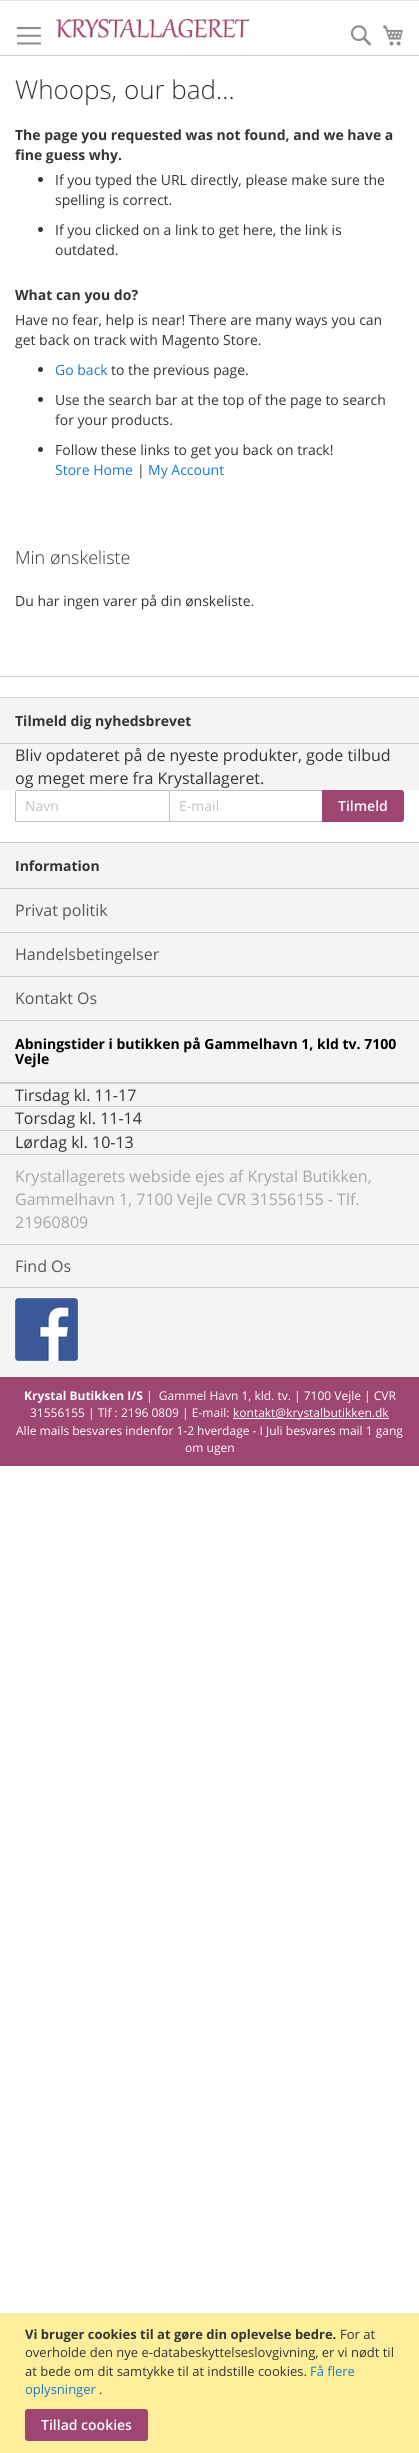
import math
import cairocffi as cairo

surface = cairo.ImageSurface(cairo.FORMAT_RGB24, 419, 2453)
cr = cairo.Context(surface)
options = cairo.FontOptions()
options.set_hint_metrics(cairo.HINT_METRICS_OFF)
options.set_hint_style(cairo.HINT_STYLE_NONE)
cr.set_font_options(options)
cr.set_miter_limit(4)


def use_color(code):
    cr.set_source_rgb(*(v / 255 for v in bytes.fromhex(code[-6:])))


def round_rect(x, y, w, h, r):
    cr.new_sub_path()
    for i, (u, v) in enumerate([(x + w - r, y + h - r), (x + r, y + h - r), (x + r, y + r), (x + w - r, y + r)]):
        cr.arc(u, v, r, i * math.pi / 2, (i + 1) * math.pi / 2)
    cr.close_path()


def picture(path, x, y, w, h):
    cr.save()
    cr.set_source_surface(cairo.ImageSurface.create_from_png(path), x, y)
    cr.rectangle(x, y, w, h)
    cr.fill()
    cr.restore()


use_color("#ffffff")
cr.paint()
use_color("#cccccc")
cr.rectangle(0, 55, 419, 1)
cr.fill()
use_color("#e8e8e8")
cr.rectangle(0, 0, 419, 1)
cr.fill()
picture("img1.png", 16, 26, 26, 19)
picture("img2.png", 55, 18, 195, 20)
picture("img3.png", 350, 25, 21, 21)
picture("img4.png", 383, 25, 20, 21)
cr.select_font_face("Open Sans Light")
cr.set_font_size(26)
use_color("#333333")
cr.move_to(15, 99)
cr.show_text("Whoops, our bad...")
cr.select_font_face("Open Sans", cairo.FONT_SLANT_NORMAL, cairo.FONT_WEIGHT_BOLD)
cr.set_font_size(14)
cr.move_to(15, 140)
cr.show_text("The page you requested was not found, and we have a")
cr.move_to(15, 160)
cr.show_text("fine guess why.")
cr.new_path()
cr.arc(40.5, 179.5, 2.5, 0, 2 * math.pi)
cr.fill()
cr.select_font_face("Open Sans")
cr.move_to(55, 185)
cr.show_text("If you typed the URL directly, please make sure the")
cr.move_to(55, 205)
cr.show_text("spelling is correct.")
cr.new_path()
cr.arc(40.5, 229.5, 2.5, 0, 2 * math.pi)
cr.fill()
cr.move_to(55, 235)
cr.show_text("If you clicked on a link to get here, the link is")
cr.move_to(55, 255)
cr.show_text("outdated.")
cr.select_font_face("Open Sans", cairo.FONT_SLANT_NORMAL, cairo.FONT_WEIGHT_BOLD)
cr.move_to(15, 300)
cr.show_text("What can you do?")
cr.select_font_face("Open Sans")
cr.move_to(15, 325)
cr.show_text("Have no fear, help is near! There are many ways you can")
cr.move_to(15, 345)
cr.show_text("get back on track with Magento Store.")
cr.new_path()
cr.arc(40.5, 369.5, 2.5, 0, 2 * math.pi)
cr.fill()
use_color("#1979c3")
cr.move_to(55, 375)
cr.show_text("Go back")
use_color("#333333")
cr.move_to(111, 375)
cr.show_text("to the previous page.")
cr.new_path()
cr.arc(40.5, 399.5, 2.5, 0, 2 * math.pi)
cr.fill()
cr.move_to(55, 405)
cr.show_text("Use the search bar at the top of the page to search")
cr.move_to(55, 425)
cr.show_text("for your products.")
cr.new_path()
cr.arc(40.5, 449.5, 2.5, 0, 2 * math.pi)
cr.fill()
cr.move_to(55, 455)
cr.show_text("Follow these links to get you back on track!")
use_color("#1979c3")
cr.move_to(55, 475)
cr.show_text("Store Home")
use_color("#333333")
cr.move_to(137, 475)
cr.show_text("|")
use_color("#1979c3")
cr.move_to(148, 475)
cr.show_text("My Account")
cr.select_font_face("Open Sans Light")
cr.set_font_size(18)
use_color("#333333")
cr.move_to(15, 564)
cr.show_text("Min ønskeliste")
cr.select_font_face("Open Sans")
cr.set_font_size(14)
cr.move_to(15, 606)
cr.show_text("Du har ingen varer på din ønskeliste.")
use_color("#cecece")
cr.rectangle(0, 676, 419, 1)
cr.fill()
use_color("#f4f4f4")
cr.rectangle(0, 698, 419, 45)
cr.fill()
use_color("#cecece")
cr.rectangle(0, 697, 419, 1)
cr.fill()
cr.select_font_face("Open Sans", cairo.FONT_SLANT_NORMAL, cairo.FONT_WEIGHT_BOLD)
use_color("#333333")
cr.move_to(15, 726)
cr.show_text("Tilmeld dig nyhedsbrevet")
use_color("#f4f4f4")
cr.rectangle(0, 744, 419, 46)
cr.fill()
use_color("#cecece")
cr.rectangle(0, 743, 419, 1)
cr.fill()
cr.select_font_face("Open Sans")
cr.set_font_size(16)
use_color("#333333")
cr.move_to(15, 761)
cr.show_text("Bliv opdateret på de nyeste produkter, gode tilbud")
cr.move_to(15, 784)
cr.show_text("og meget mere fra Krystallageret.")
use_color("#c2c2c2")
cr.rectangle(16, 790, 153, 1)
cr.fill()
cr.rectangle(16, 821, 153, 1)
cr.fill()
cr.rectangle(15, 791, 1, 31)
cr.fill()
cr.set_font_size(14)
cr.move_to(25, 811)
cr.show_text("Navn")
round_rect(169.5, 790.5, 153, 31, 0.5)
cr.set_line_width(1)
cr.stroke()
cr.move_to(179, 811)
cr.show_text("E-mail")
use_color("#9e4571")
cr.new_path()
cr.move_to(322.5, 790.5)
cr.line_to(401, 790.5)
cr.curve_to(402.5, 790.5, 403.5, 791.5, 403.5, 793)
cr.line_to(403.5, 819)
cr.curve_to(403.5, 820.5, 402.5, 821.5, 401, 821.5)
cr.line_to(322.5, 821.5)
cr.close_path()
cr.fill_preserve()
cr.stroke()
cr.select_font_face("Open Sans SemiBold")
use_color("#ffffff")
cr.move_to(338, 811)
cr.show_text("Tilmeld")
use_color("#f4f4f4")
cr.rectangle(0, 843, 419, 45)
cr.fill()
use_color("#cecece")
cr.rectangle(0, 842, 419, 1)
cr.fill()
cr.select_font_face("Open Sans", cairo.FONT_SLANT_NORMAL, cairo.FONT_WEIGHT_BOLD)
use_color("#333333")
cr.move_to(15, 871)
cr.show_text("Information")
use_color("#f4f4f4")
cr.rectangle(0, 889, 419, 43)
cr.fill()
use_color("#cecece")
cr.rectangle(0, 888, 419, 1)
cr.fill()
cr.select_font_face("Open Sans")
cr.set_font_size(16)
use_color("#575757")
cr.move_to(15, 916)
cr.show_text("Privat politik")
use_color("#f4f4f4")
cr.rectangle(0, 933, 419, 43)
cr.fill()
use_color("#cecece")
cr.rectangle(0, 932, 419, 1)
cr.fill()
use_color("#575757")
cr.move_to(15, 960)
cr.show_text("Handelsbetingelser")
use_color("#f4f4f4")
cr.rectangle(0, 977, 419, 43)
cr.fill()
use_color("#cecece")
cr.rectangle(0, 976, 419, 1)
cr.fill()
use_color("#575757")
cr.move_to(15, 1004)
cr.show_text("Kontakt Os")
use_color("#f4f4f4")
cr.rectangle(0, 1021, 419, 61)
cr.fill()
use_color("#cecece")
cr.rectangle(0, 1020, 419, 1)
cr.fill()
cr.select_font_face("Open Sans", cairo.FONT_SLANT_NORMAL, cairo.FONT_WEIGHT_BOLD)
cr.set_font_size(14)
use_color("#000000")
cr.move_to(15, 1049)
cr.show_text("Abningstider i butikken på Gammelhavn 1, kld tv. 7100")
cr.move_to(15, 1064)
cr.show_text("Vejle")
use_color("#f4f4f4")
cr.rectangle(0, 1084, 419, 70)
cr.fill()
use_color("#cecece")
cr.rectangle(0, 1082, 419, 2)
cr.fill()
cr.select_font_face("Open Sans")
cr.set_font_size(16)
use_color("#333333")
cr.move_to(15, 1101)
cr.show_text("Tirsdag kl. 11-17")
use_color("#cecece")
cr.rectangle(0, 1106, 419, 1)
cr.fill()
use_color("#333333")
cr.move_to(15, 1124)
cr.show_text("Torsdag kl. 11-14")
use_color("#cecece")
cr.rectangle(0, 1130, 419, 1)
cr.fill()
use_color("#333333")
cr.move_to(15, 1148)
cr.show_text("Lørdag kl. 10-13")
use_color("#f4f4f4")
cr.rectangle(0, 1155, 419, 89)
cr.fill()
use_color("#cecece")
cr.rectangle(0, 1154, 419, 1)
cr.fill()
use_color("#a6a6a6")
cr.move_to(15, 1182)
cr.show_text("Krystallagerets webside ejes af Krystal Butikken,")
cr.move_to(15, 1205)
cr.show_text("Gammelhavn 1, 7100 Vejle CVR 31556155 - Tlf.")
cr.move_to(15, 1228)
cr.show_text("21960809")
use_color("#f4f4f4")
cr.rectangle(0, 1245, 419, 42)
cr.fill()
use_color("#cecece")
cr.rectangle(0, 1244, 419, 1)
cr.fill()
use_color("#575757")
cr.move_to(15, 1272)
cr.show_text("Find Os")
use_color("#f4f4f4")
cr.rectangle(0, 1288, 419, 89)
cr.fill()
use_color("#cecece")
cr.rectangle(0, 1287, 419, 1)
cr.fill()
picture("img5.png", 15, 1298, 63, 63)
use_color("#9e4571")
cr.rectangle(0, 1377, 419, 89)
cr.fill()
cr.select_font_face("Open Sans", cairo.FONT_SLANT_NORMAL, cairo.FONT_WEIGHT_BOLD)
cr.set_font_size(12)
use_color("#ffffff")
cr.move_to(24, 1400)
cr.show_text("Krystal Butikken I/S")
cr.select_font_face("Open Sans")
cr.move_to(146, 1400)
cr.show_text("|  Gammel Havn 1, kld. tv. | 7100 Vejle | CVR")
cr.move_to(30, 1417)
cr.show_text("31556155 | Tlf : 2196 0809 | E-mail:")
cr.rectangle(233, 1418, 156, 1)
cr.fill()
cr.move_to(233, 1417)
cr.show_text("kontakt@krystalbutikken.dk")
cr.move_to(16, 1435)
cr.show_text("Alle mails besvares indenfor 1-2 hverdage - I Juli besvares mail 1 gang")
cr.move_to(185, 1452)
cr.show_text("om ugen")
use_color("#ffee9c")
cr.rectangle(0, 2313, 419, 140)
cr.fill()
cr.select_font_face("Open Sans", cairo.FONT_SLANT_NORMAL, cairo.FONT_WEIGHT_BOLD)
cr.set_font_size(13)
use_color("#333333")
cr.move_to(25, 2339)
cr.show_text("Vi bruger cookies til at gøre din oplevelse bedre.")
cr.select_font_face("Open Sans")
cr.move_to(340, 2339)
cr.show_text("For at")
cr.move_to(25, 2357)
cr.show_text("overholde den nye e-databeskyttelseslovgivning, er vi nødt til")
cr.move_to(25, 2376)
cr.show_text("at bede om dit samtykke til at indstille cookies.")
use_color("#1979c3")
cr.move_to(310, 2376)
cr.show_text("Få flere")
cr.move_to(25, 2394)
cr.show_text("oplysninger")
use_color("#333333")
cr.move_to(99, 2394)
cr.show_text(".")
use_color("#9e4571")
round_rect(25.5, 2409.5, 122, 31, 2.5)
cr.fill_preserve()
cr.stroke()
cr.select_font_face("Open Sans SemiBold")
cr.set_font_size(14)
use_color("#ffffff")
cr.move_to(41, 2430)
cr.show_text("Tillad cookies")
surface.write_to_png("result.png")
